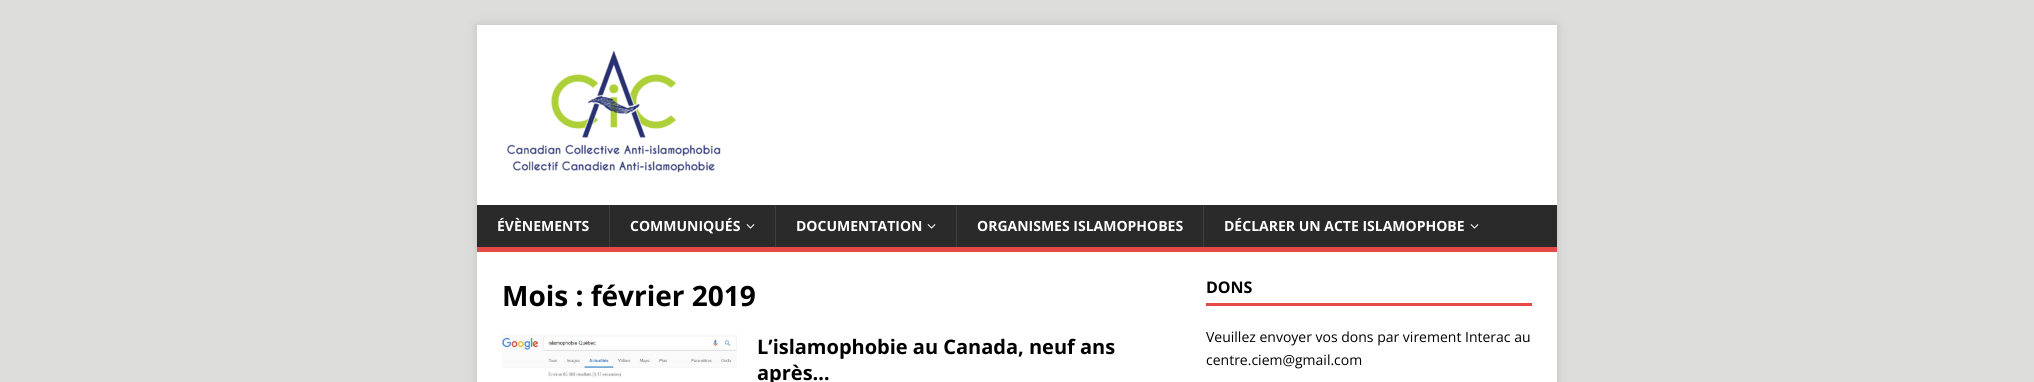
import math
import cairocffi as cairo

surface = cairo.ImageSurface(cairo.FORMAT_RGB24, 2034, 382)
cr = cairo.Context(surface)
options = cairo.FontOptions()
options.set_hint_metrics(cairo.HINT_METRICS_OFF)
options.set_hint_style(cairo.HINT_STYLE_NONE)
cr.set_font_options(options)
cr.set_miter_limit(4)


def use_color(code):
    cr.set_source_rgb(*(v / 255 for v in bytes.fromhex(code[-6:])))


def round_rect(x, y, w, h, r):
    cr.new_sub_path()
    for i, (u, v) in enumerate([(x + w - r, y + h - r), (x + r, y + h - r), (x + r, y + r), (x + w - r, y + r)]):
        cr.arc(u, v, r, i * math.pi / 2, (i + 1) * math.pi / 2)
    cr.close_path()


def shadow(x, y, w, h, r, blur, alpha):
    cr.push_group_with_content(cairo.CONTENT_ALPHA)
    cr.set_operator(cairo.OPERATOR_SOURCE)
    for i in range(15, -16, -2):
        e = blur * i / 6
        if min(w, h) + 2 * e > 0:
            cr.set_source_rgba(0, 0, 0, alpha * math.erfc((i - 1) / 8.5) / 2)
            round_rect(x - e, y - e, w + 2 * e, h + 2 * e, max(0, min(r + e + blur * .6, min(w, h) / 2 + e)))
            cr.fill()
    cr.mask(cr.pop_group())


def picture(path, x, y, w, h):
    cr.save()
    cr.set_source_surface(cairo.ImageSurface.create_from_png(path), x, y)
    cr.rectangle(x, y, w, h)
    cr.fill()
    cr.restore()


use_color("#dddddb")
cr.paint()
use_color("#323232")
shadow(477, 25, 1080, 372, 0, 5, 0.17)
use_color("#ffffff")
cr.rectangle(477, 25, 1080, 180)
cr.fill()
picture("img1.png", 507, 50, 214, 123)
use_color("#2a2a2a")
cr.rectangle(477, 205, 1080, 42)
cr.fill()
use_color("#e64946")
cr.rectangle(477, 247, 1080, 5)
cr.fill()
cr.select_font_face("Open Sans", cairo.FONT_SLANT_NORMAL, cairo.FONT_WEIGHT_BOLD)
cr.set_font_size(14)
use_color("#ffffff")
cr.move_to(497, 231)
cr.show_text("ÉVÈNEMENTS")
use_color("#3f3f3f")
cr.rectangle(609, 205, 1, 42)
cr.fill()
use_color("#ffffff")
cr.move_to(630, 231)
cr.show_text("COMMUNIQUÉS")
picture("img2.png", 746, 224, 9, 5)
use_color("#3f3f3f")
cr.rectangle(775, 205, 1, 42)
cr.fill()
use_color("#ffffff")
cr.move_to(796, 231)
cr.show_text("DOCUMENTATION")
picture("img2.png", 927, 224, 9, 5)
use_color("#3f3f3f")
cr.rectangle(956, 205, 1, 42)
cr.fill()
use_color("#ffffff")
cr.move_to(977, 231)
cr.show_text("ORGANISMES ISLAMOPHOBES")
use_color("#3f3f3f")
cr.rectangle(1203, 205, 1, 42)
cr.fill()
use_color("#ffffff")
cr.move_to(1224, 231)
cr.show_text("DÉCLARER UN ACTE ISLAMOPHOBE")
picture("img2.png", 1470, 224, 9, 5)
cr.rectangle(477, 252, 1080, 130)
cr.fill()
cr.set_font_size(28)
use_color("#000000")
cr.move_to(502, 306)
cr.show_text("Mois : février 2019")
picture("img3.png", 502, 334, 235, 44)
cr.set_font_size(20)
cr.move_to(757, 354)
cr.show_text("L’islamophobie au Canada, neuf ans")
cr.move_to(757, 380)
cr.show_text("après…")
use_color("#e64946")
cr.rectangle(1206, 303, 326, 3)
cr.fill()
cr.set_font_size(16)
use_color("#000000")
cr.move_to(1206, 293)
cr.show_text("DONS")
cr.select_font_face("Open Sans")
cr.set_font_size(14)
cr.move_to(1206, 342)
cr.show_text("Veuillez envoyer vos dons par virement Interac au")
cr.move_to(1206, 365)
cr.show_text("centre.ciem@gmail.com")
surface.write_to_png("result.png")
